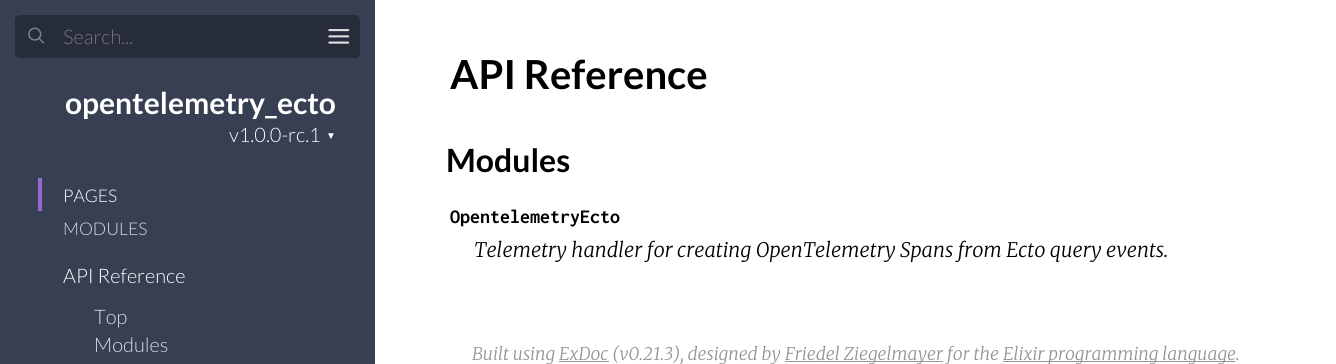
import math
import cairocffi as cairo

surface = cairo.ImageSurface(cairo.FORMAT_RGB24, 1336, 364)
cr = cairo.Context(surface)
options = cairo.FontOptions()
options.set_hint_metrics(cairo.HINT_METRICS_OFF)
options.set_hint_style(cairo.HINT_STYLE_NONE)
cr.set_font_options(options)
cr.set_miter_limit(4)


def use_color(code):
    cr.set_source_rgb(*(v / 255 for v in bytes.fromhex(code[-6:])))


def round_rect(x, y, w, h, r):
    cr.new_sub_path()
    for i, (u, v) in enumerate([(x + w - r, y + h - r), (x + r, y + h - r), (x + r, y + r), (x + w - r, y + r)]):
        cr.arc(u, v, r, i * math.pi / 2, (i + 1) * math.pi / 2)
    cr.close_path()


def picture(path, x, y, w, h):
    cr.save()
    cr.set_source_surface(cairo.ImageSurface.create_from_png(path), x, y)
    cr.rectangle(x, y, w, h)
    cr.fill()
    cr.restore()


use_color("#ffffff")
cr.paint()
use_color("#373f52")
cr.rectangle(0, 0, 375, 364)
cr.fill()
use_color("#272c3a")
round_rect(15, 15, 345, 43, 5)
cr.fill()
picture("img1.png", 28, 27, 17, 17)
cr.select_font_face("Lato Light")
cr.set_font_size(20)
use_color("#757575")
cr.move_to(63, 44)
cr.show_text("Search...")
cr.select_font_face("Lato", cairo.FONT_SLANT_NORMAL, cairo.FONT_WEIGHT_BOLD)
cr.set_font_size(30)
use_color("#ffffff")
cr.move_to(65, 114)
cr.show_text("opentelemetry_ecto")
cr.select_font_face("Lato Light")
cr.set_font_size(20)
cr.move_to(229, 142)
cr.show_text("v1.0.0-rc.1")
cr.select_font_face("Liberation Sans")
cr.set_font_size(10)
cr.move_to(326, 139)
cr.show_text("▼")
use_color("#9768d1")
cr.rectangle(38, 178, 4, 33)
cr.fill()
cr.select_font_face("Lato Light")
cr.set_font_size(17.5)
use_color("#ffffff")
cr.move_to(63, 202)
cr.show_text("PAGES")
use_color("#d5dae6")
cr.move_to(63, 235)
cr.show_text("MODULES")
cr.set_font_size(20)
use_color("#ffffff")
cr.move_to(63, 283)
cr.show_text("API Reference")
use_color("#d5dae6")
cr.move_to(94, 324)
cr.show_text("Top")
cr.move_to(94, 352)
cr.show_text("Modules")
picture("img2.png", 328, 29, 22, 15)
cr.select_font_face("Lato", cairo.FONT_SLANT_NORMAL, cairo.FONT_WEIGHT_BOLD)
cr.set_font_size(40)
use_color("#000000")
cr.move_to(450, 89)
cr.show_text("API Reference")
cr.set_font_size(32)
cr.move_to(446, 172)
cr.show_text("Modules")
cr.select_font_face("Inconsolata", cairo.FONT_SLANT_NORMAL, cairo.FONT_WEIGHT_BOLD)
cr.set_font_size(20)
cr.move_to(450, 223)
cr.show_text("OpentelemetryEcto")
cr.select_font_face("Merriweather Light", cairo.FONT_SLANT_ITALIC)
cr.move_to(474, 257)
cr.show_text("Telemetry handler for creating OpenTelemetry Spans from Ecto query events.")
cr.set_font_size(17.5)
use_color("#959595")
cr.move_to(472, 360)
cr.show_text("Built using ExDoc (v0.21.3), designed by")
cr.rectangle(559, 361, 50, 1)
cr.fill()
cr.rectangle(785, 361, 158, 1)
cr.fill()
cr.move_to(785, 360)
cr.show_text("Friedel Ziegelmayer for the")
cr.rectangle(1003, 361, 232, 1)
cr.fill()
cr.move_to(1003, 360)
cr.show_text("Elixir programming language.")
surface.write_to_png("result.png")
